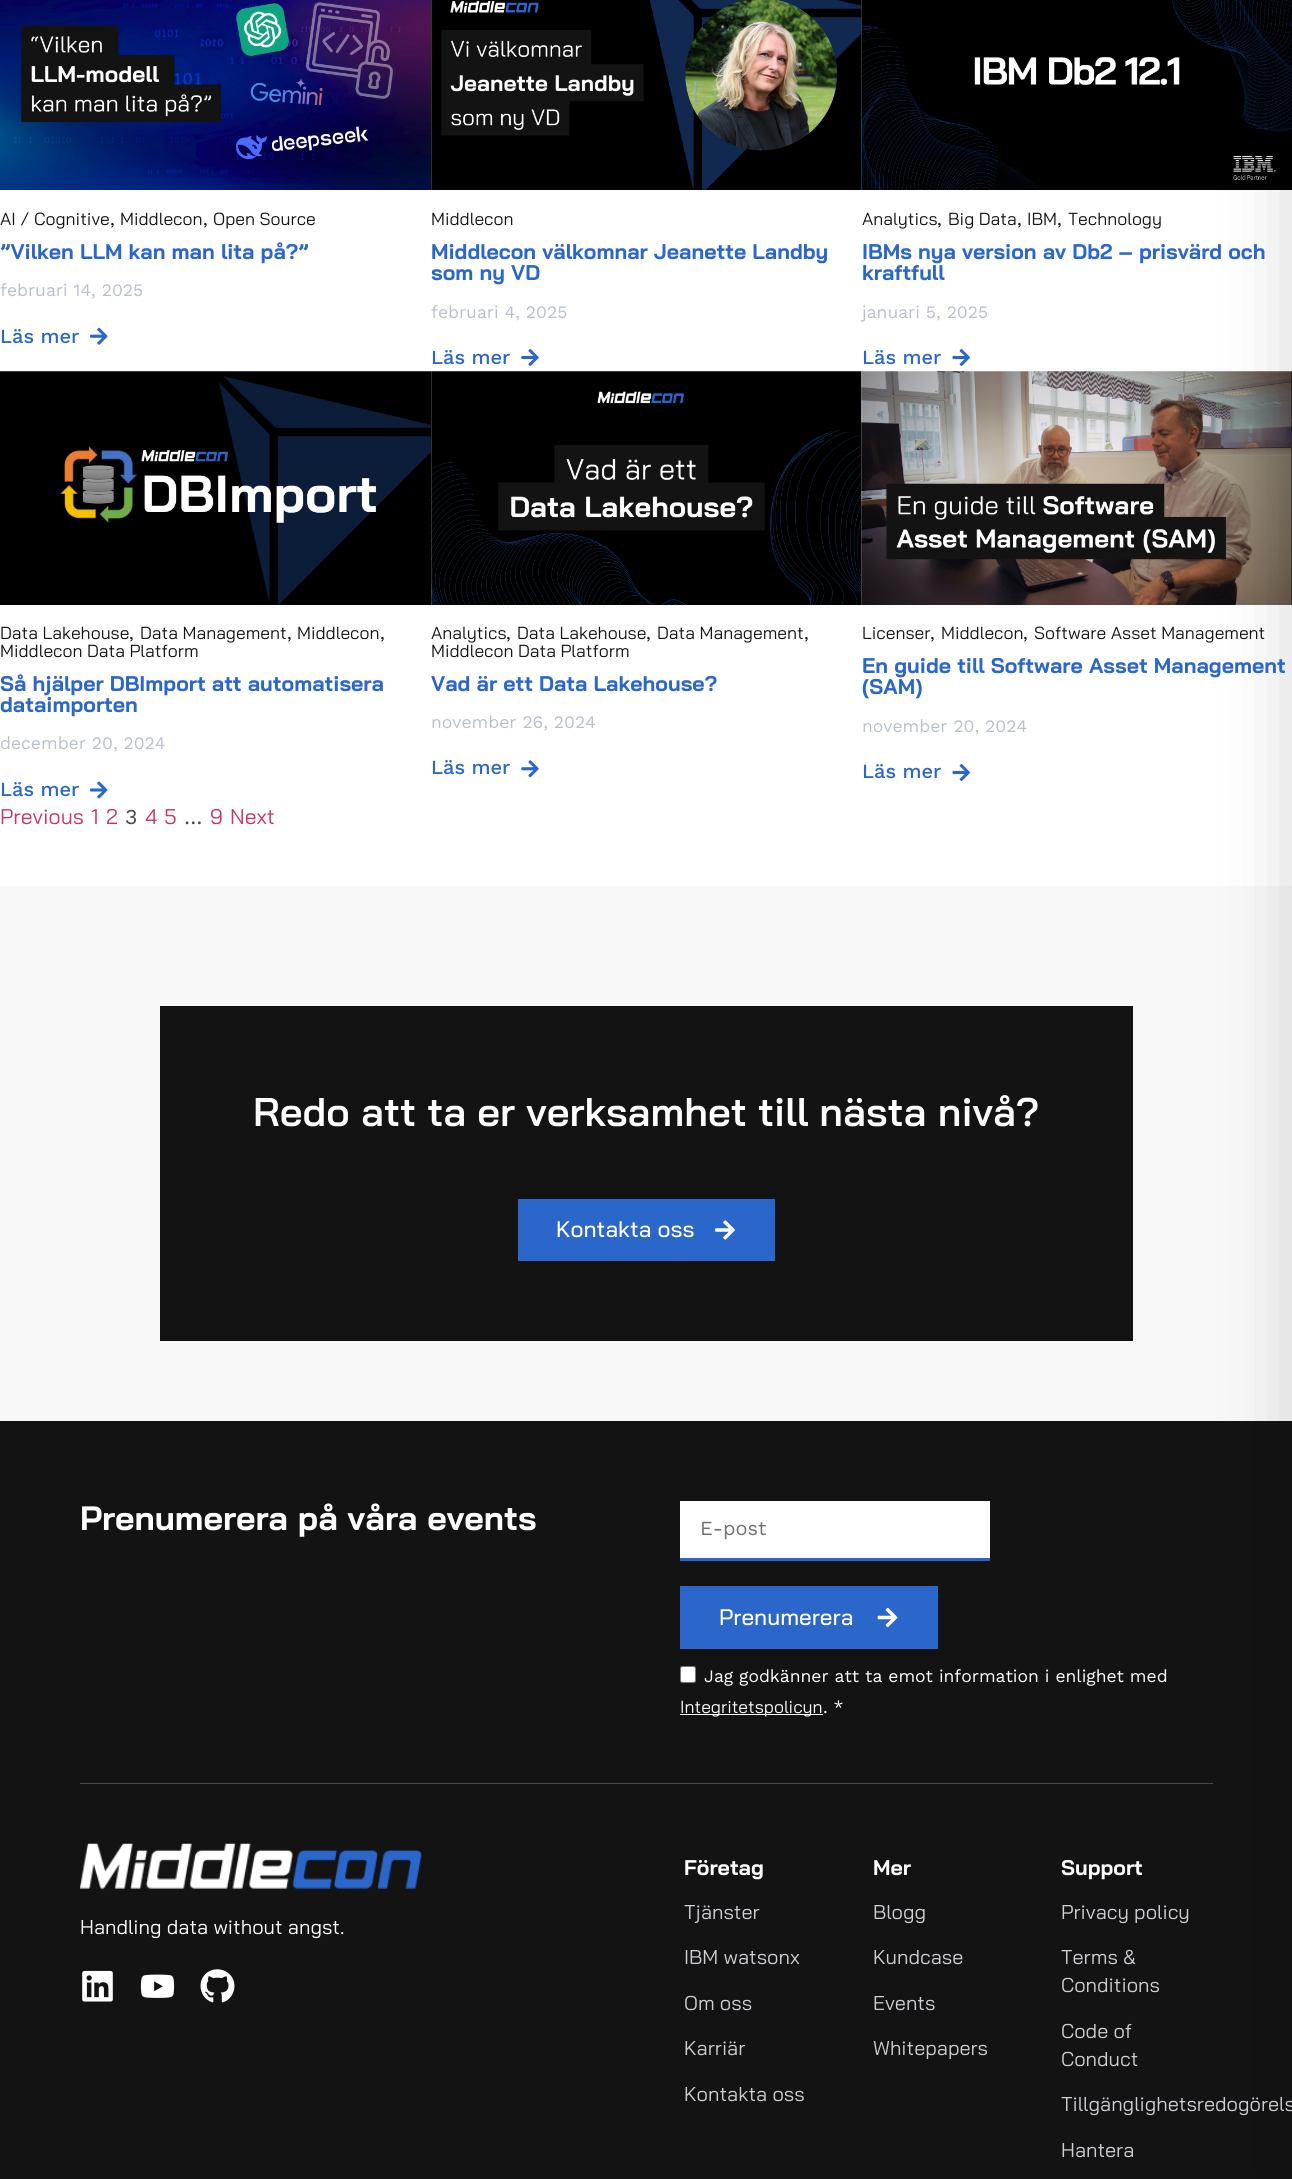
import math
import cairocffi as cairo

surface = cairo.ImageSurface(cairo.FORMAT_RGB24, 1292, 2179)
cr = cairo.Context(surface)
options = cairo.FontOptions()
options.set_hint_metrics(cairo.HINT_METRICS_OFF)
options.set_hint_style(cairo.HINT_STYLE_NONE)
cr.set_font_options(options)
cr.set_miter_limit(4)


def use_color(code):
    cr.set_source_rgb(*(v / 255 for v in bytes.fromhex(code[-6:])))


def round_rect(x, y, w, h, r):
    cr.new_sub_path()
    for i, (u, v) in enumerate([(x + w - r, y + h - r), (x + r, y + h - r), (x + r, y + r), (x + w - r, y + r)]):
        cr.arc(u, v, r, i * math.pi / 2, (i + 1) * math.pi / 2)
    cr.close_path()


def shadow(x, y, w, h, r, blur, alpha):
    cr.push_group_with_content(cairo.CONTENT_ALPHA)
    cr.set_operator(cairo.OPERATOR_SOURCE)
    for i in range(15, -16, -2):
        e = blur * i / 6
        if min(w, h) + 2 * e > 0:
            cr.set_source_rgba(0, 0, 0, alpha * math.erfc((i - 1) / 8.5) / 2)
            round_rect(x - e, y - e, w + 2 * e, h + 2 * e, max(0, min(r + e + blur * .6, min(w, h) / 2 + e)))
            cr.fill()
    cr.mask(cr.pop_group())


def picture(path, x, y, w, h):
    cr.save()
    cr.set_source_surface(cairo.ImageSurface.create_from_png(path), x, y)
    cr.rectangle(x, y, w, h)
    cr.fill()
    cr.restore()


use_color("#ffffff")
cr.paint()
picture("img1.png", 0, 0, 432, 190)
picture("img3.png", 431, 0, 431, 190)
picture("img5.png", 861, 0, 431, 190)
picture("img7.png", 0, 371, 432, 234)
picture("img9.png", 431, 371, 431, 234)
picture("img11.png", 861, 371, 431, 234)
use_color("#f8f8f8")
cr.rectangle(0, 886, 1292, 535)
cr.fill()
use_color("#131314")
cr.rectangle(0, 1421, 1292, 758)
cr.fill()
use_color("#484848")
cr.rectangle(80, 1783, 1133, 1)
cr.fill()
use_color("#000000")
shadow(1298, 13, 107, 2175, 0, 37.5, 0.2)
cr.select_font_face("Bai Jamjuree")
cr.set_font_size(17.5)
use_color("#131314")
cr.move_to(0, 225)
cr.show_text("AI / Cognitive")
cr.select_font_face("Work Sans")
cr.move_to(110, 225)
cr.show_text(",")
cr.select_font_face("Bai Jamjuree")
cr.move_to(120, 225)
cr.show_text("Middlecon")
cr.select_font_face("Work Sans")
cr.move_to(203, 225)
cr.show_text(",")
cr.select_font_face("Bai Jamjuree")
cr.move_to(213, 225)
cr.show_text("Open Source")
cr.select_font_face("Bai Jamjuree", cairo.FONT_SLANT_NORMAL, cairo.FONT_WEIGHT_BOLD)
cr.set_font_size(21.25)
use_color("#2b66ca")
cr.move_to(0, 259)
cr.show_text("”Vilken LLM kan man lita på?”")
cr.select_font_face("Work Sans")
cr.set_font_size(17.5)
use_color("#b9c0cd")
cr.move_to(0, 296)
cr.show_text("februari 14, 2025")
cr.select_font_face("Work Sans Medium")
cr.set_font_size(20)
use_color("#2b66ca")
cr.move_to(0, 343)
cr.show_text("Läs mer")
picture("img2.png", 90, 327, 18, 18)
cr.select_font_face("Bai Jamjuree")
cr.set_font_size(17.5)
use_color("#131314")
cr.move_to(431, 225)
cr.show_text("Middlecon")
cr.select_font_face("Bai Jamjuree", cairo.FONT_SLANT_NORMAL, cairo.FONT_WEIGHT_BOLD)
cr.set_font_size(21.25)
use_color("#2b66ca")
cr.move_to(431, 259)
cr.show_text("Middlecon välkomnar Jeanette Landby")
cr.move_to(431, 280)
cr.show_text("som ny VD")
cr.select_font_face("Work Sans")
cr.set_font_size(17.5)
use_color("#b9c0cd")
cr.move_to(431, 318)
cr.show_text("februari 4, 2025")
cr.select_font_face("Work Sans Medium")
cr.set_font_size(20)
use_color("#2b66ca")
cr.move_to(431, 364)
cr.show_text("Läs mer")
picture("img4.png", 521, 349, 18, 17)
cr.select_font_face("Bai Jamjuree")
cr.set_font_size(17.5)
use_color("#131314")
cr.move_to(862, 225)
cr.show_text("Analytics")
cr.select_font_face("Work Sans")
cr.move_to(937, 225)
cr.show_text(",")
cr.select_font_face("Bai Jamjuree")
cr.move_to(948, 225)
cr.show_text("Big Data")
cr.select_font_face("Work Sans")
cr.move_to(1017, 225)
cr.show_text(",")
cr.select_font_face("Bai Jamjuree")
cr.move_to(1027, 225)
cr.show_text("IBM")
cr.select_font_face("Work Sans")
cr.move_to(1057, 225)
cr.show_text(",")
cr.select_font_face("Bai Jamjuree")
cr.move_to(1068, 225)
cr.show_text("Technology")
cr.select_font_face("Bai Jamjuree", cairo.FONT_SLANT_NORMAL, cairo.FONT_WEIGHT_BOLD)
cr.set_font_size(21.25)
use_color("#2b66ca")
cr.move_to(862, 259)
cr.show_text("IBMs nya version av Db2 – prisvärd och")
cr.move_to(862, 280)
cr.show_text("kraftfull")
cr.select_font_face("Work Sans")
cr.set_font_size(17.5)
use_color("#b9c0cd")
cr.move_to(862, 318)
cr.show_text("januari 5, 2025")
cr.select_font_face("Work Sans Medium")
cr.set_font_size(20)
use_color("#2b66ca")
cr.move_to(862, 364)
cr.show_text("Läs mer")
picture("img6.png", 952, 349, 18, 17)
cr.select_font_face("Bai Jamjuree")
cr.set_font_size(17.5)
use_color("#131314")
cr.move_to(0, 639)
cr.show_text("Data Lakehouse")
cr.select_font_face("Work Sans")
cr.move_to(129, 639)
cr.show_text(",")
cr.select_font_face("Bai Jamjuree")
cr.move_to(140, 639)
cr.show_text("Data Management")
cr.select_font_face("Work Sans")
cr.move_to(287, 639)
cr.show_text(",")
cr.select_font_face("Bai Jamjuree")
cr.move_to(297, 639)
cr.show_text("Middlecon")
cr.select_font_face("Work Sans")
cr.move_to(380, 639)
cr.show_text(",")
cr.select_font_face("Bai Jamjuree")
cr.move_to(0, 657)
cr.show_text("Middlecon Data Platform")
cr.select_font_face("Bai Jamjuree", cairo.FONT_SLANT_NORMAL, cairo.FONT_WEIGHT_BOLD)
cr.set_font_size(21.25)
use_color("#2b66ca")
cr.move_to(0, 691)
cr.show_text("Så hjälper DBImport att automatisera")
cr.move_to(0, 712)
cr.show_text("dataimporten")
cr.select_font_face("Work Sans")
cr.set_font_size(17.5)
use_color("#b9c0cd")
cr.move_to(0, 749)
cr.show_text("december 20, 2024")
cr.select_font_face("Work Sans Medium")
cr.set_font_size(20)
use_color("#2b66ca")
cr.move_to(0, 796)
cr.show_text("Läs mer")
picture("img8.png", 90, 781, 18, 18)
cr.select_font_face("Bai Jamjuree")
cr.set_font_size(17.5)
use_color("#131314")
cr.move_to(431, 639)
cr.show_text("Analytics")
cr.select_font_face("Work Sans")
cr.move_to(506, 639)
cr.show_text(",")
cr.select_font_face("Bai Jamjuree")
cr.move_to(517, 639)
cr.show_text("Data Lakehouse")
cr.select_font_face("Work Sans")
cr.move_to(646, 639)
cr.show_text(",")
cr.select_font_face("Bai Jamjuree")
cr.move_to(657, 639)
cr.show_text("Data Management")
cr.select_font_face("Work Sans")
cr.move_to(804, 639)
cr.show_text(",")
cr.select_font_face("Bai Jamjuree")
cr.move_to(431, 657)
cr.show_text("Middlecon Data Platform")
cr.select_font_face("Bai Jamjuree", cairo.FONT_SLANT_NORMAL, cairo.FONT_WEIGHT_BOLD)
cr.set_font_size(21.25)
use_color("#2b66ca")
cr.move_to(431, 691)
cr.show_text("Vad är ett Data Lakehouse?")
cr.select_font_face("Work Sans")
cr.set_font_size(17.5)
use_color("#b9c0cd")
cr.move_to(431, 728)
cr.show_text("november 26, 2024")
cr.select_font_face("Work Sans Medium")
cr.set_font_size(20)
use_color("#2b66ca")
cr.move_to(431, 774)
cr.show_text("Läs mer")
picture("img10.png", 521, 760, 18, 18)
cr.select_font_face("Bai Jamjuree")
cr.set_font_size(17.5)
use_color("#131314")
cr.move_to(862, 639)
cr.show_text("Licenser")
cr.select_font_face("Work Sans")
cr.move_to(930, 639)
cr.show_text(",")
cr.select_font_face("Bai Jamjuree")
cr.move_to(941, 639)
cr.show_text("Middlecon")
cr.select_font_face("Work Sans")
cr.move_to(1023, 639)
cr.show_text(",")
cr.select_font_face("Bai Jamjuree")
cr.move_to(1034, 639)
cr.show_text("Software Asset Management")
cr.select_font_face("Bai Jamjuree", cairo.FONT_SLANT_NORMAL, cairo.FONT_WEIGHT_BOLD)
cr.set_font_size(21.25)
use_color("#2b66ca")
cr.move_to(862, 673)
cr.show_text("En guide till Software Asset Management")
cr.move_to(862, 694)
cr.show_text("(SAM)")
cr.select_font_face("Work Sans")
cr.set_font_size(17.5)
use_color("#b9c0cd")
cr.move_to(862, 732)
cr.show_text("november 20, 2024")
cr.select_font_face("Work Sans Medium")
cr.set_font_size(20)
use_color("#2b66ca")
cr.move_to(862, 778)
cr.show_text("Läs mer")
picture("img6.png", 952, 764, 18, 17)
cr.select_font_face("Bai Jamjuree")
cr.set_font_size(21.25)
use_color("#cc3366")
cr.move_to(0, 824)
cr.show_text("Previous")
cr.move_to(91, 824)
cr.show_text("1")
cr.move_to(106, 824)
cr.show_text("2")
cr.select_font_face("Work Sans")
use_color("#484848")
cr.move_to(125, 824)
cr.show_text("3")
cr.select_font_face("Bai Jamjuree")
use_color("#cc3366")
cr.move_to(145, 824)
cr.show_text("4")
cr.move_to(164, 824)
cr.show_text("5")
cr.select_font_face("Work Sans")
use_color("#484848")
cr.move_to(184, 824)
cr.show_text("…")
cr.select_font_face("Bai Jamjuree")
use_color("#cc3366")
cr.move_to(210, 824)
cr.show_text("9")
cr.move_to(230, 824)
cr.show_text("Next")
use_color("#131314")
cr.rectangle(160, 1006, 973, 335)
cr.fill()
cr.select_font_face("Bai Jamjuree SemiBold")
cr.set_font_size(40)
use_color("#ffffff")
cr.move_to(253, 1126)
cr.show_text("Redo att ta er verksamhet till nästa nivå?")
use_color("#2b66ca")
cr.rectangle(518, 1199, 257, 62)
cr.fill()
cr.select_font_face("Bai Jamjuree Medium")
cr.set_font_size(22.5)
use_color("#ffffff")
cr.move_to(556, 1237)
cr.show_text("Kontakta oss")
picture("img12.png", 715, 1220, 20, 20)
cr.select_font_face("Bai Jamjuree", cairo.FONT_SLANT_NORMAL, cairo.FONT_WEIGHT_BOLD)
cr.set_font_size(33.75)
cr.move_to(80, 1530)
cr.show_text("Prenumerera på våra events")
cr.rectangle(680, 1501, 310, 57)
cr.fill()
use_color("#2b66ca")
cr.rectangle(680, 1558, 310, 3)
cr.fill()
cr.select_font_face("Work Sans")
cr.set_font_size(20)
use_color("#717172")
cr.move_to(700, 1535)
cr.show_text("E-post")
use_color("#2b66ca")
cr.rectangle(680, 1586, 258, 63)
cr.fill()
cr.select_font_face("Bai Jamjuree Medium")
cr.set_font_size(22.5)
use_color("#ffffff")
cr.move_to(719, 1625)
cr.show_text("Prenumerera")
picture("img13.png", 877, 1607, 21, 21)
round_rect(680.5, 1666.5, 15, 16, 2)
cr.fill_preserve()
use_color("#767676")
cr.set_line_width(1)
cr.stroke()
cr.select_font_face("Work Sans")
cr.set_font_size(17.5)
use_color("#ffffff")
cr.move_to(704, 1682)
cr.show_text("Jag godkänner att ta emot information i enlighet med")
cr.rectangle(680, 1714, 143, 1)
cr.fill()
cr.select_font_face("Bai Jamjuree")
cr.move_to(680, 1713)
cr.show_text("Integritetspolicyn")
cr.select_font_face("Work Sans")
cr.move_to(823, 1713)
cr.show_text(". *")
picture("img14.png", 80, 1843, 342, 46)
cr.select_font_face("Bai Jamjuree")
cr.set_font_size(20)
cr.move_to(80, 1934)
cr.show_text("Handling data without angst.")
picture("img15.png", 82, 1970, 31, 32)
picture("img16.png", 140, 1974, 35, 24)
picture("img17.png", 200, 1969, 35, 34)
cr.select_font_face("Bai Jamjuree", cairo.FONT_SLANT_NORMAL, cairo.FONT_WEIGHT_BOLD)
cr.set_font_size(21.25)
cr.move_to(684, 1875)
cr.show_text("Företag")
cr.select_font_face("Bai Jamjuree")
cr.set_font_size(20)
use_color("#cdcfd3")
cr.move_to(684, 1919)
cr.show_text("Tjänster")
cr.move_to(684, 1964)
cr.show_text("IBM watsonx")
cr.move_to(684, 2010)
cr.show_text("Om oss")
cr.move_to(684, 2055)
cr.show_text("Karriär")
cr.move_to(684, 2101)
cr.show_text("Kontakta oss")
cr.select_font_face("Bai Jamjuree", cairo.FONT_SLANT_NORMAL, cairo.FONT_WEIGHT_BOLD)
cr.set_font_size(21.25)
use_color("#ffffff")
cr.move_to(873, 1875)
cr.show_text("Mer")
cr.select_font_face("Bai Jamjuree")
cr.set_font_size(20)
use_color("#cdcfd3")
cr.move_to(873, 1919)
cr.show_text("Blogg")
cr.move_to(873, 1964)
cr.show_text("Kundcase")
cr.move_to(873, 2010)
cr.show_text("Events")
cr.move_to(873, 2055)
cr.show_text("Whitepapers")
cr.select_font_face("Bai Jamjuree", cairo.FONT_SLANT_NORMAL, cairo.FONT_WEIGHT_BOLD)
cr.set_font_size(21.25)
use_color("#ffffff")
cr.move_to(1061, 1875)
cr.show_text("Support")
cr.select_font_face("Bai Jamjuree")
cr.set_font_size(20)
use_color("#cdcfd3")
cr.move_to(1061, 1919)
cr.show_text("Privacy policy")
cr.move_to(1061, 1964)
cr.show_text("Terms &")
cr.move_to(1061, 1992)
cr.show_text("Conditions")
cr.move_to(1061, 2038)
cr.show_text("Code of")
cr.move_to(1061, 2066)
cr.show_text("Conduct")
cr.move_to(1061, 2111)
cr.show_text("Tillgänglighetsredogörels")
cr.move_to(1061, 2157)
cr.show_text("Hantera")
surface.write_to_png("result.png")
